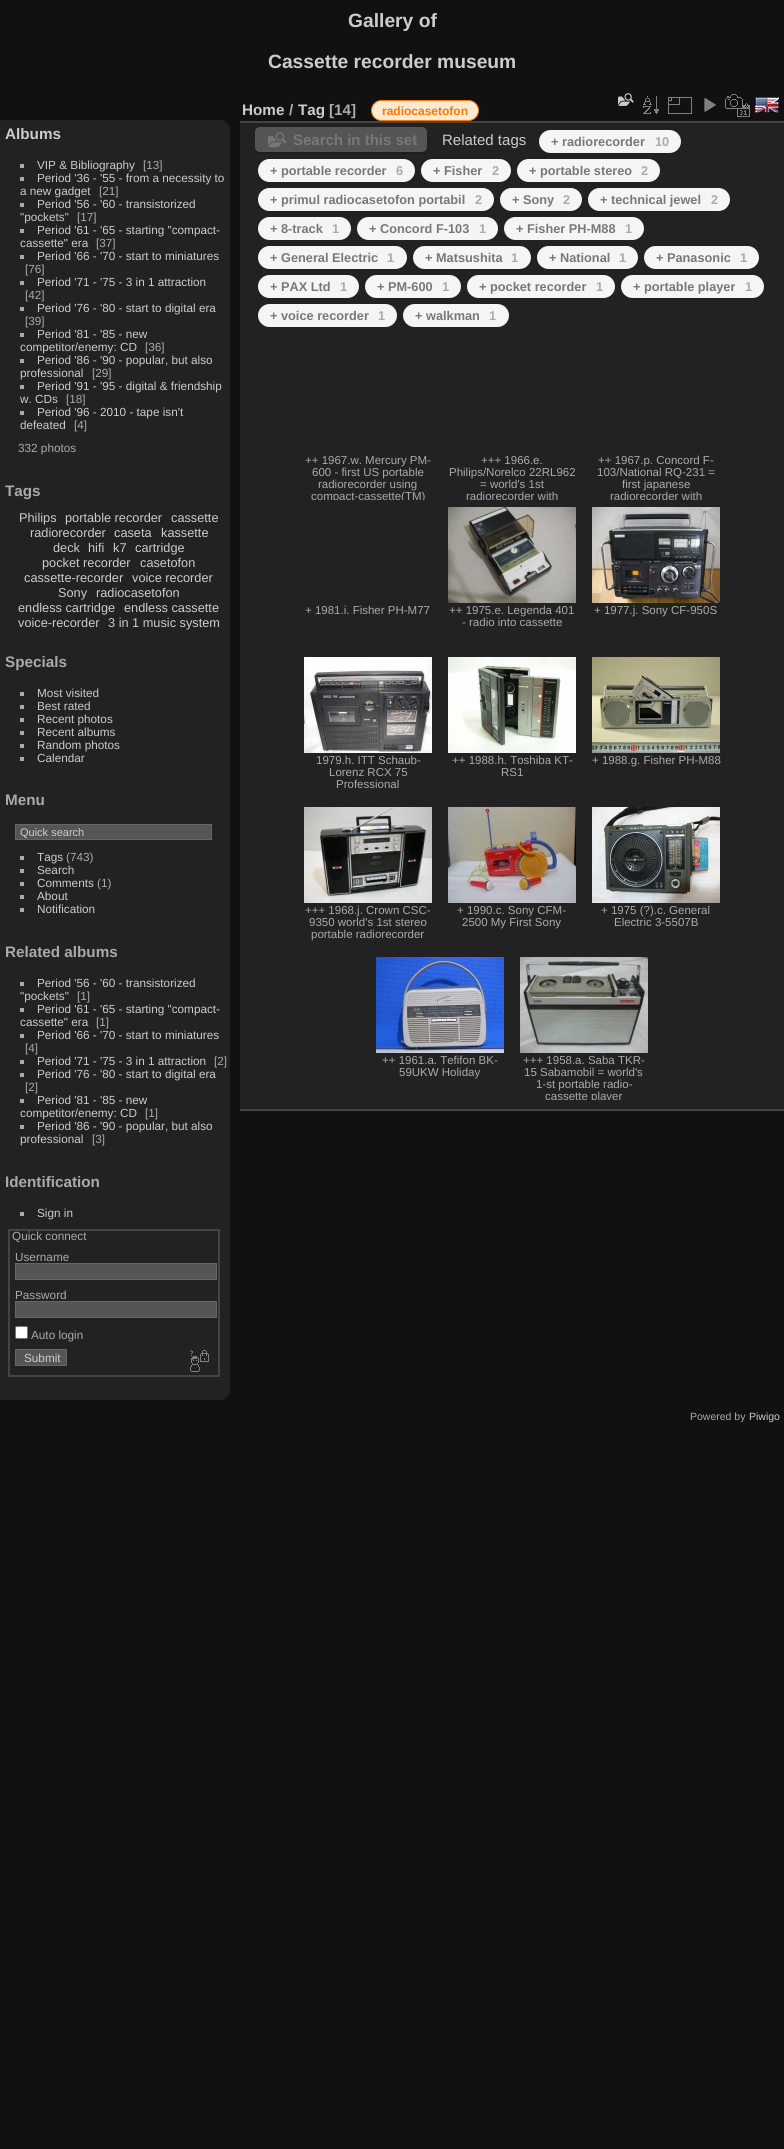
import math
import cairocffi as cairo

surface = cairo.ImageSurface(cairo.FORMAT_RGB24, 784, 2149)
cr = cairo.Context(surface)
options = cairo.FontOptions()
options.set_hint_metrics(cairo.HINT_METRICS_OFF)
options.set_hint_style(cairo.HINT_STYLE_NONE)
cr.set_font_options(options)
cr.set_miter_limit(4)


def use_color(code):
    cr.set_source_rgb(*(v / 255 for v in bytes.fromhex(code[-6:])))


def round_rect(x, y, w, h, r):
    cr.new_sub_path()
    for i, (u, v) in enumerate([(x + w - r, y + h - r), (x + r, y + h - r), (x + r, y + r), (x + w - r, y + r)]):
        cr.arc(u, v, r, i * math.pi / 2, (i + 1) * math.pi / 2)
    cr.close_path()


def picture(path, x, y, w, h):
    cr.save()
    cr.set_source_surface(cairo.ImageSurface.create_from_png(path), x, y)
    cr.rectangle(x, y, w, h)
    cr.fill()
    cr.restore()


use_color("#111111")
cr.paint()
cr.select_font_face("Liberation Sans", cairo.FONT_SLANT_NORMAL, cairo.FONT_WEIGHT_BOLD)
cr.set_font_size(19.25)
use_color("#cccccc")
cr.move_to(348, 27)
cr.show_text("Gallery of")
cr.move_to(268, 68)
cr.show_text("Cassette recorder museum")
use_color("#222222")
cr.new_path()
cr.move_to(0, 120)
cr.line_to(220, 120)
cr.curve_to(225.5, 120, 230, 124.5, 230, 130)
cr.line_to(230, 1390)
cr.curve_to(230, 1395.5, 225.5, 1400, 220, 1400)
cr.line_to(0, 1400)
cr.close_path()
cr.fill()
cr.set_font_size(15.25)
use_color("#cccccc")
cr.move_to(5, 139)
cr.show_text("Albums")
use_color("#aaaaaa")
cr.rectangle(20, 164, 4, 4)
cr.fill()
cr.select_font_face("Liberation Sans")
cr.set_font_size(11.75)
use_color("#cccccc")
cr.move_to(37, 169)
cr.show_text("VIP & Bibliography")
use_color("#aaaaaa")
cr.move_to(143, 169)
cr.show_text("[13]")
cr.rectangle(20, 177, 4, 4)
cr.fill()
use_color("#cccccc")
cr.move_to(37, 182)
cr.show_text("Period '36 - '55 - from a necessity to")
cr.move_to(20, 195)
cr.show_text("a new gadget")
use_color("#aaaaaa")
cr.move_to(99, 195)
cr.show_text("[21]")
cr.rectangle(20, 203, 4, 4)
cr.fill()
use_color("#cccccc")
cr.move_to(37, 208)
cr.show_text("Period '56 - '60 - transistorized")
cr.move_to(20, 221)
cr.show_text("\"pockets\"")
use_color("#aaaaaa")
cr.move_to(77, 221)
cr.show_text("[17]")
cr.rectangle(20, 229, 4, 4)
cr.fill()
use_color("#cccccc")
cr.move_to(37, 234)
cr.show_text("Period '61 - '65 - starting \"compact-")
cr.move_to(20, 247)
cr.show_text("cassette\" era")
use_color("#aaaaaa")
cr.move_to(96, 247)
cr.show_text("[37]")
cr.rectangle(20, 255, 4, 4)
cr.fill()
use_color("#cccccc")
cr.move_to(37, 260)
cr.show_text("Period '66 - '70 - start to miniatures")
use_color("#aaaaaa")
cr.move_to(25, 273)
cr.show_text("[76]")
cr.rectangle(20, 281, 4, 4)
cr.fill()
use_color("#cccccc")
cr.move_to(37, 286)
cr.show_text("Period '71 - '75 - 3 in 1 attraction")
use_color("#aaaaaa")
cr.move_to(25, 299)
cr.show_text("[42]")
cr.rectangle(20, 307, 4, 4)
cr.fill()
use_color("#cccccc")
cr.move_to(37, 312)
cr.show_text("Period '76 - '80 - start to digital era")
use_color("#aaaaaa")
cr.move_to(25, 325)
cr.show_text("[39]")
cr.rectangle(20, 333, 4, 4)
cr.fill()
use_color("#cccccc")
cr.move_to(37, 338)
cr.show_text("Period '81 - '85 - new")
cr.move_to(20, 351)
cr.show_text("competitor/enemy: CD")
use_color("#aaaaaa")
cr.move_to(145, 351)
cr.show_text("[36]")
cr.rectangle(20, 359, 4, 4)
cr.fill()
use_color("#cccccc")
cr.move_to(37, 364)
cr.show_text("Period '86 - '90 - popular, but also")
cr.move_to(20, 377)
cr.show_text("professional")
use_color("#aaaaaa")
cr.move_to(92, 377)
cr.show_text("[29]")
cr.rectangle(20, 385, 4, 4)
cr.fill()
use_color("#cccccc")
cr.move_to(37, 390)
cr.show_text("Period '91 - '95 - digital & friendship")
cr.move_to(20, 403)
cr.show_text("w. CDs")
use_color("#aaaaaa")
cr.move_to(66, 403)
cr.show_text("[18]")
cr.rectangle(20, 411, 4, 4)
cr.fill()
use_color("#cccccc")
cr.move_to(37, 416)
cr.show_text("Period '96 - 2010 - tape isn't")
cr.move_to(20, 429)
cr.show_text("defeated")
use_color("#aaaaaa")
cr.move_to(74, 429)
cr.show_text("[4]")
cr.move_to(18, 452)
cr.show_text("332 photos")
cr.select_font_face("Liberation Sans", cairo.FONT_SLANT_NORMAL, cairo.FONT_WEIGHT_BOLD)
cr.set_font_size(15.25)
cr.move_to(5, 496)
cr.show_text("Tags")
cr.select_font_face("Liberation Sans")
cr.set_font_size(12.75)
use_color("#cccccc")
cr.move_to(19, 522)
cr.show_text("Philips")
cr.move_to(65, 522)
cr.show_text("portable recorder")
cr.move_to(171, 522)
cr.show_text("cassette")
cr.move_to(30, 537)
cr.show_text("radiorecorder")
cr.move_to(114, 537)
cr.show_text("caseta")
cr.move_to(161, 537)
cr.show_text("kassette")
cr.move_to(53, 552)
cr.show_text("deck")
cr.move_to(88, 552)
cr.show_text("hifi")
cr.move_to(113, 552)
cr.show_text("k7")
cr.move_to(135, 552)
cr.show_text("cartridge")
cr.move_to(42, 567)
cr.show_text("pocket recorder")
cr.move_to(140, 567)
cr.show_text("casetofon")
cr.move_to(24, 582)
cr.show_text("cassette-recorder")
cr.move_to(132, 582)
cr.show_text("voice recorder")
cr.move_to(58, 597)
cr.show_text("Sony")
cr.move_to(96, 597)
cr.show_text("radiocasetofon")
cr.move_to(18, 612)
cr.show_text("endless cartridge")
cr.move_to(124, 612)
cr.show_text("endless cassette")
cr.move_to(18, 627)
cr.show_text("voice-recorder")
cr.move_to(108, 627)
cr.show_text("3 in 1 music system")
cr.select_font_face("Liberation Sans", cairo.FONT_SLANT_NORMAL, cairo.FONT_WEIGHT_BOLD)
cr.set_font_size(15.25)
use_color("#aaaaaa")
cr.move_to(5, 667)
cr.show_text("Specials")
cr.rectangle(20, 692, 4, 4)
cr.fill()
cr.select_font_face("Liberation Sans")
cr.set_font_size(11.75)
use_color("#cccccc")
cr.move_to(37, 697)
cr.show_text("Most visited")
use_color("#aaaaaa")
cr.rectangle(20, 705, 4, 4)
cr.fill()
use_color("#cccccc")
cr.move_to(37, 710)
cr.show_text("Best rated")
use_color("#aaaaaa")
cr.rectangle(20, 718, 4, 4)
cr.fill()
use_color("#cccccc")
cr.move_to(37, 723)
cr.show_text("Recent photos")
use_color("#aaaaaa")
cr.rectangle(20, 731, 4, 4)
cr.fill()
use_color("#cccccc")
cr.move_to(37, 736)
cr.show_text("Recent albums")
use_color("#aaaaaa")
cr.rectangle(20, 744, 4, 4)
cr.fill()
use_color("#cccccc")
cr.move_to(37, 749)
cr.show_text("Random photos")
use_color("#aaaaaa")
cr.rectangle(20, 757, 4, 4)
cr.fill()
use_color("#cccccc")
cr.move_to(37, 762)
cr.show_text("Calendar")
cr.select_font_face("Liberation Sans", cairo.FONT_SLANT_NORMAL, cairo.FONT_WEIGHT_BOLD)
cr.set_font_size(15.25)
use_color("#aaaaaa")
cr.move_to(5, 805)
cr.show_text("Menu")
use_color("#555555")
cr.rectangle(15.5, 824.5, 196, 15)
cr.fill_preserve()
use_color("#666666")
cr.set_line_width(1)
cr.stroke()
cr.select_font_face("Liberation Sans")
cr.set_font_size(11)
use_color("#cccccc")
cr.move_to(20, 836)
cr.show_text("Quick search")
use_color("#aaaaaa")
cr.rectangle(20, 856, 4, 4)
cr.fill()
cr.set_font_size(11.75)
use_color("#cccccc")
cr.move_to(37, 861)
cr.show_text("Tags")
use_color("#aaaaaa")
cr.move_to(66, 861)
cr.show_text("(743)")
cr.rectangle(20, 869, 4, 4)
cr.fill()
use_color("#cccccc")
cr.move_to(37, 874)
cr.show_text("Search")
use_color("#aaaaaa")
cr.rectangle(20, 882, 4, 4)
cr.fill()
use_color("#cccccc")
cr.move_to(37, 887)
cr.show_text("Comments")
use_color("#aaaaaa")
cr.move_to(97, 887)
cr.show_text("(1)")
cr.rectangle(20, 895, 4, 4)
cr.fill()
use_color("#cccccc")
cr.move_to(37, 900)
cr.show_text("About")
use_color("#aaaaaa")
cr.rectangle(20, 908, 4, 4)
cr.fill()
use_color("#cccccc")
cr.move_to(37, 913)
cr.show_text("Notification")
cr.select_font_face("Liberation Sans", cairo.FONT_SLANT_NORMAL, cairo.FONT_WEIGHT_BOLD)
cr.set_font_size(15.25)
use_color("#aaaaaa")
cr.move_to(5, 957)
cr.show_text("Related albums")
cr.rectangle(20, 982, 4, 4)
cr.fill()
cr.select_font_face("Liberation Sans")
cr.set_font_size(11.75)
use_color("#cccccc")
cr.move_to(37, 987)
cr.show_text("Period '56 - '60 - transistorized")
cr.move_to(20, 1000)
cr.show_text("\"pockets\"")
use_color("#aaaaaa")
cr.move_to(77, 1000)
cr.show_text("[1]")
cr.rectangle(20, 1008, 4, 4)
cr.fill()
use_color("#cccccc")
cr.move_to(37, 1013)
cr.show_text("Period '61 - '65 - starting \"compact-")
cr.move_to(20, 1026)
cr.show_text("cassette\" era")
use_color("#aaaaaa")
cr.move_to(96, 1026)
cr.show_text("[1]")
cr.rectangle(20, 1034, 4, 4)
cr.fill()
use_color("#cccccc")
cr.move_to(37, 1039)
cr.show_text("Period '66 - '70 - start to miniatures")
use_color("#aaaaaa")
cr.move_to(25, 1052)
cr.show_text("[4]")
cr.rectangle(20, 1060, 4, 4)
cr.fill()
use_color("#cccccc")
cr.move_to(37, 1065)
cr.show_text("Period '71 - '75 - 3 in 1 attraction")
use_color("#aaaaaa")
cr.move_to(214, 1065)
cr.show_text("[2]")
cr.rectangle(20, 1073, 4, 4)
cr.fill()
use_color("#cccccc")
cr.move_to(37, 1078)
cr.show_text("Period '76 - '80 - start to digital era")
use_color("#aaaaaa")
cr.move_to(25, 1091)
cr.show_text("[2]")
cr.rectangle(20, 1099, 4, 4)
cr.fill()
use_color("#cccccc")
cr.move_to(37, 1104)
cr.show_text("Period '81 - '85 - new")
cr.move_to(20, 1117)
cr.show_text("competitor/enemy: CD")
use_color("#aaaaaa")
cr.move_to(145, 1117)
cr.show_text("[1]")
cr.rectangle(20, 1125, 4, 4)
cr.fill()
use_color("#cccccc")
cr.move_to(37, 1130)
cr.show_text("Period '86 - '90 - popular, but also")
cr.move_to(20, 1143)
cr.show_text("professional")
use_color("#aaaaaa")
cr.move_to(92, 1143)
cr.show_text("[3]")
cr.select_font_face("Liberation Sans", cairo.FONT_SLANT_NORMAL, cairo.FONT_WEIGHT_BOLD)
cr.set_font_size(15.25)
cr.move_to(5, 1187)
cr.show_text("Identification")
cr.rectangle(20, 1212, 4, 4)
cr.fill()
cr.select_font_face("Liberation Sans")
cr.set_font_size(11.75)
use_color("#cccccc")
cr.move_to(37, 1217)
cr.show_text("Sign in")
cr.rectangle(9, 1230, 210, 146)
use_color("#444444")
cr.set_line_width(2)
cr.stroke()
use_color("#aaaaaa")
cr.move_to(12, 1240)
cr.show_text("Quick connect")
cr.move_to(15, 1261)
cr.show_text("Username")
use_color("#555555")
cr.rectangle(15.5, 1263.5, 201, 16)
cr.fill_preserve()
use_color("#666666")
cr.set_line_width(1)
cr.stroke()
use_color("#aaaaaa")
cr.move_to(15, 1299)
cr.show_text("Password")
use_color("#555555")
cr.rectangle(15.5, 1301.5, 201, 16)
cr.fill_preserve()
use_color("#666666")
cr.stroke()
use_color("#ffffff")
round_rect(15.5, 1326.5, 12, 12, 1.5)
cr.fill_preserve()
use_color("#767676")
cr.stroke()
use_color("#aaaaaa")
cr.move_to(31, 1339)
cr.show_text("Auto login")
use_color("#555555")
cr.rectangle(15.5, 1349.5, 51, 16)
cr.fill_preserve()
use_color("#666666")
cr.stroke()
use_color("#cccccc")
cr.move_to(24, 1362)
cr.show_text("Submit")
picture("img1.png", 190, 1350, 19, 22)
use_color("#222222")
cr.rectangle(240, 123, 544, 986)
cr.fill()
use_color("#444444")
cr.rectangle(240, 1109, 544, 2)
cr.fill()
cr.rectangle(240, 121, 544, 2)
cr.fill()
cr.select_font_face("Liberation Sans", cairo.FONT_SLANT_NORMAL, cairo.FONT_WEIGHT_BOLD)
cr.set_font_size(15.25)
use_color("#cccccc")
cr.move_to(242, 115)
cr.show_text("Home")
use_color("#aaaaaa")
cr.move_to(289, 115)
cr.show_text("/")
use_color("#cccccc")
cr.move_to(298, 115)
cr.show_text("Tag")
use_color("#aaaaaa")
cr.move_to(329, 115)
cr.show_text("[14]")
use_color("#fcead2")
round_rect(371.5, 100.5, 107, 20, 10)
cr.fill_preserve()
use_color("#ff7700")
cr.stroke()
cr.set_font_size(12)
cr.move_to(382, 115)
cr.show_text("radiocasetofon")
picture("img2.png", 618, 93, 16, 13)
picture("img3.png", 643, 96, 16, 18)
picture("img4.png", 668, 97, 24, 17)
picture("img5.png", 704, 98, 12, 14)
picture("img6.png", 725, 94, 25, 23)
picture("img7.png", 755, 97, 24, 16)
use_color("#1d1d1d")
cr.new_path()
cr.move_to(255, 147)
cr.line_to(255, 149)
cr.curve_to(255, 152, 257, 154, 260, 154)
cr.line_to(422, 154)
cr.curve_to(425, 154, 427, 152, 427, 149)
cr.line_to(427, 147)
cr.curve_to(427, 150, 425, 152, 422, 152)
cr.line_to(260, 152)
cr.curve_to(257, 152, 255, 150, 255, 147)
cr.close_path()
cr.fill()
use_color("#555555")
round_rect(255, 127, 172, 25, 5)
cr.fill()
picture("img8.png", 268, 132, 19, 16)
cr.set_font_size(15)
use_color("#787878")
cr.move_to(293, 145)
cr.show_text("Search in this set")
cr.select_font_face("Liberation Sans")
use_color("#cccccc")
cr.move_to(442, 145)
cr.show_text("Related tags")
use_color("#f5f5f5")
round_rect(539, 130, 142, 23, 11.5)
cr.fill()
cr.select_font_face("Liberation Sans", cairo.FONT_SLANT_NORMAL, cairo.FONT_WEIGHT_BOLD)
cr.set_font_size(12.75)
use_color("#787878")
cr.move_to(551, 146)
cr.show_text("+ radiorecorder")
use_color("#aaaaaa")
cr.move_to(655, 146)
cr.show_text("10")
use_color("#f5f5f5")
round_rect(258, 159, 157, 23, 11.5)
cr.fill()
use_color("#787878")
cr.move_to(270, 175)
cr.show_text("+ portable recorder")
use_color("#aaaaaa")
cr.move_to(396, 175)
cr.show_text("6")
use_color("#f5f5f5")
round_rect(421, 159, 90, 23, 11.5)
cr.fill()
use_color("#787878")
cr.move_to(433, 175)
cr.show_text("+ Fisher")
use_color("#aaaaaa")
cr.move_to(492, 175)
cr.show_text("2")
use_color("#f5f5f5")
round_rect(517, 159, 143, 23, 11.5)
cr.fill()
use_color("#787878")
cr.move_to(529, 175)
cr.show_text("+ portable stereo")
use_color("#aaaaaa")
cr.move_to(641, 175)
cr.show_text("2")
use_color("#f5f5f5")
round_rect(258, 188, 236, 23, 11.5)
cr.fill()
use_color("#787878")
cr.move_to(270, 204)
cr.show_text("+ primul radiocasetofon portabil")
use_color("#aaaaaa")
cr.move_to(475, 204)
cr.show_text("2")
use_color("#f5f5f5")
round_rect(500, 188, 82, 23, 11.5)
cr.fill()
use_color("#787878")
cr.move_to(512, 204)
cr.show_text("+ Sony")
use_color("#aaaaaa")
cr.move_to(563, 204)
cr.show_text("2")
use_color("#f5f5f5")
round_rect(588, 188, 142, 23, 11.5)
cr.fill()
use_color("#787878")
cr.move_to(600, 204)
cr.show_text("+ technical jewel")
use_color("#aaaaaa")
cr.move_to(711, 204)
cr.show_text("2")
use_color("#f5f5f5")
round_rect(258, 217, 93, 23, 11.5)
cr.fill()
use_color("#787878")
cr.move_to(270, 233)
cr.show_text("+ 8-track")
use_color("#aaaaaa")
cr.move_to(332, 233)
cr.show_text("1")
use_color("#f5f5f5")
round_rect(357, 217, 141, 23, 11.5)
cr.fill()
use_color("#787878")
cr.move_to(369, 233)
cr.show_text("+ Concord F-103")
use_color("#aaaaaa")
cr.move_to(479, 233)
cr.show_text("1")
use_color("#f5f5f5")
round_rect(504, 217, 140, 23, 11.5)
cr.fill()
use_color("#787878")
cr.move_to(516, 233)
cr.show_text("+ Fisher PH-M88")
use_color("#aaaaaa")
cr.move_to(625, 233)
cr.show_text("1")
use_color("#f5f5f5")
round_rect(258, 246, 149, 23, 11.5)
cr.fill()
use_color("#787878")
cr.move_to(270, 262)
cr.show_text("+ General Electric")
use_color("#aaaaaa")
cr.move_to(387, 262)
cr.show_text("1")
use_color("#f5f5f5")
round_rect(413, 246, 118, 23, 11.5)
cr.fill()
use_color("#787878")
cr.move_to(425, 262)
cr.show_text("+ Matsushita")
use_color("#aaaaaa")
cr.move_to(511, 262)
cr.show_text("1")
use_color("#f5f5f5")
round_rect(537, 246, 101, 23, 11.5)
cr.fill()
use_color("#787878")
cr.move_to(549, 262)
cr.show_text("+ National")
use_color("#aaaaaa")
cr.move_to(619, 262)
cr.show_text("1")
use_color("#f5f5f5")
round_rect(644, 246, 115, 23, 11.5)
cr.fill()
use_color("#787878")
cr.move_to(656, 262)
cr.show_text("+ Panasonic")
use_color("#aaaaaa")
cr.move_to(740, 262)
cr.show_text("1")
use_color("#f5f5f5")
round_rect(258, 275, 101, 23, 11.5)
cr.fill()
use_color("#787878")
cr.move_to(270, 291)
cr.show_text("+ PAX Ltd")
use_color("#aaaaaa")
cr.move_to(340, 291)
cr.show_text("1")
use_color("#f5f5f5")
round_rect(365, 275, 96, 23, 11.5)
cr.fill()
use_color("#787878")
cr.move_to(377, 291)
cr.show_text("+ PM-600")
use_color("#aaaaaa")
cr.move_to(442, 291)
cr.show_text("1")
use_color("#f5f5f5")
round_rect(467, 275, 148, 23, 11.5)
cr.fill()
use_color("#787878")
cr.move_to(479, 291)
cr.show_text("+ pocket recorder")
use_color("#aaaaaa")
cr.move_to(596, 291)
cr.show_text("1")
use_color("#f5f5f5")
round_rect(621, 275, 143, 23, 11.5)
cr.fill()
use_color("#787878")
cr.move_to(633, 291)
cr.show_text("+ portable player")
use_color("#aaaaaa")
cr.move_to(745, 291)
cr.show_text("1")
use_color("#f5f5f5")
round_rect(258, 304, 139, 23, 11.5)
cr.fill()
use_color("#787878")
cr.move_to(270, 320)
cr.show_text("+ voice recorder")
use_color("#aaaaaa")
cr.move_to(378, 320)
cr.show_text("1")
use_color("#f5f5f5")
round_rect(403, 304, 106, 23, 11.5)
cr.fill()
use_color("#787878")
cr.move_to(415, 320)
cr.show_text("+ walkman")
use_color("#aaaaaa")
cr.move_to(489, 320)
cr.show_text("1")
cr.select_font_face("Liberation Sans")
cr.set_font_size(11.5)
cr.move_to(305, 464)
cr.show_text("++ 1967.w. Mercury PM-")
cr.move_to(312, 476)
cr.show_text("600 - first US portable")
cr.move_to(318, 488)
cr.show_text("radiorecorder using")
cr.save()
cr.rectangle(303, 454, 130, 46)
cr.clip()
cr.move_to(311, 500)
cr.show_text("compact-cassette(TM)")
cr.restore()
cr.move_to(481, 464)
cr.show_text("+++ 1966.e.")
cr.move_to(449, 476)
cr.show_text("Philips/Norelco 22RL962")
cr.move_to(480, 488)
cr.show_text("= world's 1st")
cr.save()
cr.rectangle(447, 454, 130, 46)
cr.clip()
cr.move_to(466, 500)
cr.show_text("radiorecorder with")
cr.restore()
cr.move_to(598, 464)
cr.show_text("++ 1967.p. Concord F-")
cr.move_to(597, 476)
cr.show_text("103/National RQ-231 =")
cr.move_to(622, 488)
cr.show_text("first japanese")
cr.save()
cr.rectangle(591, 454, 130, 46)
cr.clip()
cr.move_to(610, 500)
cr.show_text("radiorecorder with")
cr.restore()
cr.move_to(305, 614)
cr.show_text("+ 1981.i. Fisher PH-M77")
picture("img9.png", 448, 507, 128, 96)
cr.move_to(449, 614)
cr.show_text("++ 1975.e. Legenda 401")
cr.move_to(462, 626)
cr.show_text("- radio into cassette")
picture("img10.png", 592, 507, 128, 96)
cr.move_to(594, 614)
cr.show_text("+ 1977.j. Sony CF-950S")
picture("img11.png", 304, 657, 128, 96)
cr.move_to(316, 764)
cr.show_text("1979.h. ITT Schaub-")
cr.move_to(329, 776)
cr.show_text("Lorenz RCX 75")
cr.move_to(336, 788)
cr.show_text("Professional")
picture("img12.png", 448, 657, 128, 96)
cr.move_to(452, 764)
cr.show_text("++ 1988.h. Toshiba KT-")
cr.move_to(501, 776)
cr.show_text("RS1")
picture("img13.png", 592, 657, 128, 96)
cr.move_to(592, 764)
cr.show_text("+ 1988.g. Fisher PH-M88")
picture("img14.png", 304, 807, 128, 96)
cr.move_to(305, 914)
cr.show_text("+++ 1968.j. Crown CSC-")
cr.move_to(309, 926)
cr.show_text("9350 world's 1st stereo")
cr.move_to(311, 938)
cr.show_text("portable radiorecorder")
picture("img15.png", 448, 807, 128, 96)
cr.move_to(457, 914)
cr.show_text("+ 1990.c. Sony CFM-")
cr.move_to(462, 926)
cr.show_text("2500 My First Sony")
picture("img16.png", 592, 807, 128, 96)
cr.move_to(601, 914)
cr.show_text("+ 1975 (?).c. General")
cr.move_to(614, 926)
cr.show_text("Electric 3-5507B")
picture("img17.png", 376, 957, 128, 96)
cr.move_to(382, 1064)
cr.show_text("++ 1961.a. Tefifon BK-")
cr.move_to(399, 1076)
cr.show_text("59UKW Holiday")
picture("img18.png", 520, 957, 128, 96)
cr.move_to(523, 1064)
cr.show_text("+++ 1958.a. Saba TKR-")
cr.move_to(524, 1076)
cr.show_text("15 Sabamobil = world's")
cr.move_to(536, 1088)
cr.show_text("1-st portable radio-")
cr.save()
cr.rectangle(519, 1054, 130, 46)
cr.clip()
cr.move_to(545, 1100)
cr.show_text("cassette player")
cr.restore()
cr.set_font_size(10.5)
cr.move_to(690, 1420)
cr.show_text("Powered by")
use_color("#cccccc")
cr.move_to(749, 1420)
cr.show_text("Piwigo")
surface.write_to_png("result.png")
